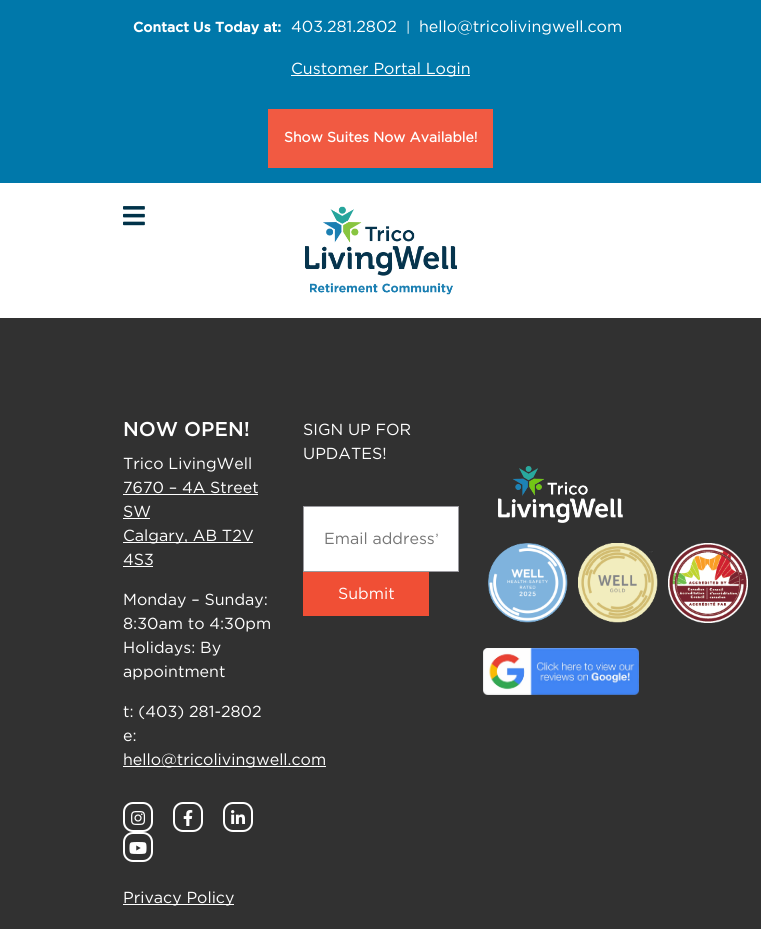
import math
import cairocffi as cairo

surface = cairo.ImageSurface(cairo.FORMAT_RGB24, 761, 929)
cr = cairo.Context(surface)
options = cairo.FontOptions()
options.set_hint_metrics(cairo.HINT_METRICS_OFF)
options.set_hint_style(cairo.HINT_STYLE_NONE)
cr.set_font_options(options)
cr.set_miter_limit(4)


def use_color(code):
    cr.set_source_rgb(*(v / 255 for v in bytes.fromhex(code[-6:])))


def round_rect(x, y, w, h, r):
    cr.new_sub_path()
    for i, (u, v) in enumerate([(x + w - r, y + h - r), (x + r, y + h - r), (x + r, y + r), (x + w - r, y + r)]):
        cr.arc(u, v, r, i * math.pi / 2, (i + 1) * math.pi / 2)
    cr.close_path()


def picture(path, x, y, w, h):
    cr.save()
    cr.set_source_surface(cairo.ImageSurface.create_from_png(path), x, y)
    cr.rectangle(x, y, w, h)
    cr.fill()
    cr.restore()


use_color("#ffffff")
cr.paint()
use_color("#0078aa")
cr.rectangle(0, 0, 761, 183)
cr.fill()
cr.select_font_face("Gotham", cairo.FONT_SLANT_NORMAL, cairo.FONT_WEIGHT_BOLD)
cr.set_font_size(14)
use_color("#ffffff")
cr.move_to(133, 32)
cr.show_text("Contact Us Today at:")
cr.select_font_face("Gotham")
cr.set_font_size(16)
cr.move_to(291, 32)
cr.show_text("403.281.2802")
cr.set_font_size(14)
cr.move_to(406, 32)
cr.show_text("|")
cr.set_font_size(16)
cr.move_to(419, 32)
cr.show_text("hello@tricolivingwell.com")
cr.rectangle(291, 75, 179, 1)
cr.fill()
cr.move_to(291, 74)
cr.show_text("Customer Portal Login")
use_color("#f15a42")
cr.rectangle(268, 109, 225, 59)
cr.fill()
cr.select_font_face("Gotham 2", cairo.FONT_SLANT_NORMAL, cairo.FONT_WEIGHT_BOLD)
cr.set_font_size(14)
use_color("#ffffff")
cr.move_to(284, 142)
cr.show_text("Show Suites Now Available!")
picture("img1.png", 123, 206, 22, 20)
picture("img2.png", 305, 206, 152, 89)
use_color("#313131")
cr.rectangle(0, 318, 761, 611)
cr.fill()
cr.select_font_face("Gotham Medium")
cr.set_font_size(20)
use_color("#ffffff")
cr.move_to(123, 436)
cr.show_text("NOW OPEN!")
cr.select_font_face("Gotham")
cr.set_font_size(16)
cr.move_to(123, 469)
cr.show_text("Trico LivingWell")
cr.move_to(123, 493)
cr.show_text("7670 – 4A Street")
cr.rectangle(123, 494, 135, 1)
cr.fill()
cr.move_to(123, 517)
cr.show_text("SW")
cr.rectangle(123, 518, 27, 1)
cr.fill()
cr.rectangle(123, 542, 130, 1)
cr.fill()
cr.move_to(123, 541)
cr.show_text("Calgary, AB T2V")
cr.move_to(123, 565)
cr.show_text("4S3")
cr.rectangle(123, 566, 30, 1)
cr.fill()
cr.move_to(123, 605)
cr.show_text("Monday – Sunday:")
cr.move_to(123, 629)
cr.show_text("8:30am to 4:30pm")
cr.move_to(123, 653)
cr.show_text("Holidays: By")
cr.move_to(123, 677)
cr.show_text("appointment")
cr.move_to(123, 717)
cr.show_text("t: (403) 281-2802")
cr.move_to(123, 741)
cr.show_text("e:")
cr.rectangle(123, 766, 203, 1)
cr.fill()
cr.move_to(123, 765)
cr.show_text("hello@tricolivingwell.com")
round_rect(124, 803, 28, 28, 9)
cr.stroke()
picture("img3.png", 131, 811, 15, 14)
round_rect(174, 803, 28, 28, 9)
cr.stroke()
picture("img4.png", 183, 810, 10, 16)
round_rect(224, 803, 28, 28, 9)
cr.stroke()
picture("img5.png", 231, 810, 14, 14)
round_rect(124, 833, 28, 28, 9)
cr.stroke()
picture("img6.png", 129, 842, 18, 12)
cr.rectangle(123, 904, 111, 1)
cr.fill()
cr.move_to(123, 903)
cr.show_text("Privacy Policy")
cr.move_to(303, 435)
cr.show_text("SIGN UP FOR")
cr.move_to(303, 459)
cr.show_text("UPDATES!")
cr.rectangle(303.5, 506.5, 155, 65)
cr.fill_preserve()
use_color("#9a999e")
cr.set_line_width(1)
cr.stroke()
cr.save()
cr.rectangle(324, 531, 114, 16)
cr.clip()
use_color("#757575")
cr.move_to(324, 544)
cr.show_text("Email address*")
cr.restore()
use_color("#f04f35")
cr.rectangle(303, 572, 126, 44)
cr.fill()
use_color("#ffffff")
cr.move_to(338, 599)
cr.show_text("Submit")
picture("img7.png", 498, 466, 125, 57)
picture("img8.png", 488, 543, 80, 80)
picture("img9.png", 578, 543, 80, 80)
picture("img10.png", 668, 543, 80, 80)
picture("img11.png", 483, 648, 156, 47)
surface.write_to_png("result.png")
